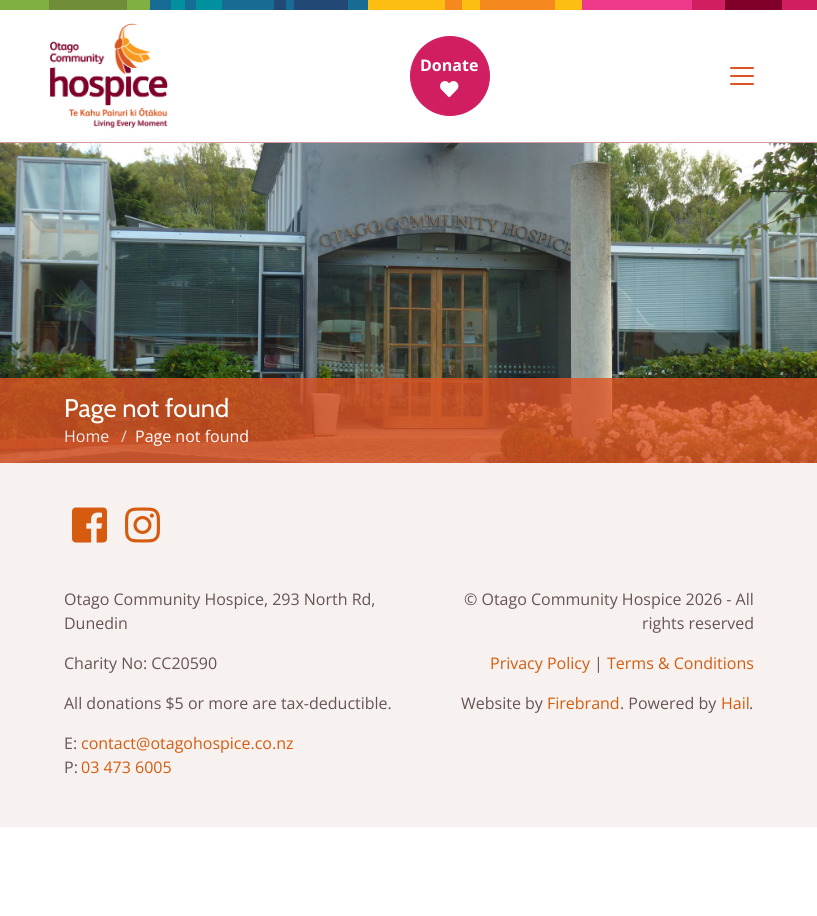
import math
import cairocffi as cairo

surface = cairo.ImageSurface(cairo.FORMAT_RGB24, 817, 916)
cr = cairo.Context(surface)
options = cairo.FontOptions()
options.set_hint_metrics(cairo.HINT_METRICS_OFF)
options.set_hint_style(cairo.HINT_STYLE_NONE)
cr.set_font_options(options)
cr.set_miter_limit(4)


def use_color(code):
    cr.set_source_rgb(*(v / 255 for v in bytes.fromhex(code[-6:])))


def picture(path, x, y, w, h):
    cr.save()
    cr.set_source_surface(cairo.ImageSurface.create_from_png(path), x, y)
    cr.rectangle(x, y, w, h)
    cr.fill()
    cr.restore()


use_color("#ffffff")
cr.paint()
use_color("#80b041")
cr.rectangle(0, 0, 49, 10)
cr.fill()
use_color("#708d3a")
cr.rectangle(49, 0, 78, 10)
cr.fill()
use_color("#80b041")
cr.rectangle(127, 0, 23, 10)
cr.fill()
use_color("#166c95")
cr.rectangle(150, 0, 21, 10)
cr.fill()
use_color("#00909e")
cr.rectangle(171, 0, 14, 10)
cr.fill()
use_color("#166c95")
cr.rectangle(185, 0, 11, 10)
cr.fill()
use_color("#00909e")
cr.rectangle(196, 0, 26, 10)
cr.fill()
use_color("#166c95")
cr.rectangle(222, 0, 52, 10)
cr.fill()
use_color("#224876")
cr.rectangle(274, 0, 12, 10)
cr.fill()
use_color("#166c95")
cr.rectangle(286, 0, 8, 10)
cr.fill()
use_color("#224876")
cr.rectangle(294, 0, 54, 10)
cr.fill()
use_color("#166c95")
cr.rectangle(348, 0, 20, 10)
cr.fill()
use_color("#febd11")
cr.rectangle(368, 0, 77, 10)
cr.fill()
use_color("#f6891e")
cr.rectangle(445, 0, 17, 10)
cr.fill()
use_color("#febd11")
cr.rectangle(462, 0, 18, 10)
cr.fill()
use_color("#f6891e")
cr.rectangle(480, 0, 75, 10)
cr.fill()
use_color("#febd11")
cr.rectangle(555, 0, 27, 10)
cr.fill()
use_color("#ee398a")
cr.rectangle(582, 0, 110, 10)
cr.fill()
use_color("#d11e61")
cr.rectangle(692, 0, 33, 10)
cr.fill()
use_color("#80002a")
cr.rectangle(725, 0, 57, 10)
cr.fill()
use_color("#d11e61")
cr.rectangle(782, 0, 35, 10)
cr.fill()
use_color("#d69999")
cr.rectangle(0, 142, 817, 1)
cr.fill()
picture("img1.png", 50, 23, 118, 106)
use_color("#d11e61")
cr.arc(450, 76, 39.5, 0, 2 * math.pi)
cr.fill_preserve()
cr.set_line_width(1)
cr.stroke()
cr.select_font_face("Open Sans", cairo.FONT_SLANT_NORMAL, cairo.FONT_WEIGHT_BOLD)
cr.set_font_size(16)
use_color("#ffffff")
cr.move_to(420, 71)
cr.show_text("Donate")
picture("img2.png", 440, 81, 19, 17)
picture("img3.png", 730, 67, 24, 18)
picture("img4.png", 0, 143, 817, 320)
cr.set_source_rgba(0.867, 0.325, 0.141, 0.8)
cr.rectangle(0, 378, 817, 85)
cr.fill()
cr.select_font_face("Cabin")
cr.set_font_size(25.5)
use_color("#ffffff")
cr.move_to(64, 417)
cr.show_text("Page not found")
cr.select_font_face("Open Sans")
cr.set_font_size(16)
use_color("#eeeeee")
cr.move_to(64, 442)
cr.show_text("Home")
use_color("#dddddd")
cr.move_to(121, 442)
cr.show_text("/")
use_color("#ffffff")
cr.move_to(135, 442)
cr.show_text("Page not found")
use_color("#f7f2f0")
cr.rectangle(0, 463, 817, 364)
cr.fill()
picture("img5.png", 72, 507, 35, 36)
picture("img6.png", 125, 507, 35, 36)
use_color("#675454")
cr.move_to(64, 605)
cr.show_text("Otago Community Hospice, 293 North Rd,")
cr.move_to(64, 629)
cr.show_text("Dunedin")
cr.move_to(64, 669)
cr.show_text("Charity No: CC20590")
cr.move_to(64, 709)
cr.show_text("All donations $5 or more are tax-deductible.")
cr.move_to(64, 749)
cr.show_text("E:")
use_color("#d65b0e")
cr.move_to(81, 749)
cr.show_text("contact@otagohospice.co.nz")
use_color("#675454")
cr.move_to(64, 773)
cr.show_text("P:")
use_color("#d65b0e")
cr.move_to(81, 773)
cr.show_text("03 473 6005")
use_color("#675454")
cr.move_to(464, 605)
cr.show_text("© Otago Community Hospice 2026 - All")
cr.move_to(642, 629)
cr.show_text("rights reserved")
use_color("#d65b0e")
cr.move_to(490, 669)
cr.show_text("Privacy Policy")
use_color("#675454")
cr.move_to(594, 669)
cr.show_text("|")
use_color("#d65b0e")
cr.move_to(607, 669)
cr.show_text("Terms & Conditions")
use_color("#675454")
cr.move_to(461, 709)
cr.show_text("Website by")
use_color("#d65b0e")
cr.move_to(547, 709)
cr.show_text("Firebrand")
use_color("#675454")
cr.move_to(620, 709)
cr.show_text(". Powered by")
use_color("#d65b0e")
cr.move_to(721, 709)
cr.show_text("Hail")
use_color("#675454")
cr.move_to(749, 709)
cr.show_text(".")
surface.write_to_png("result.png")
